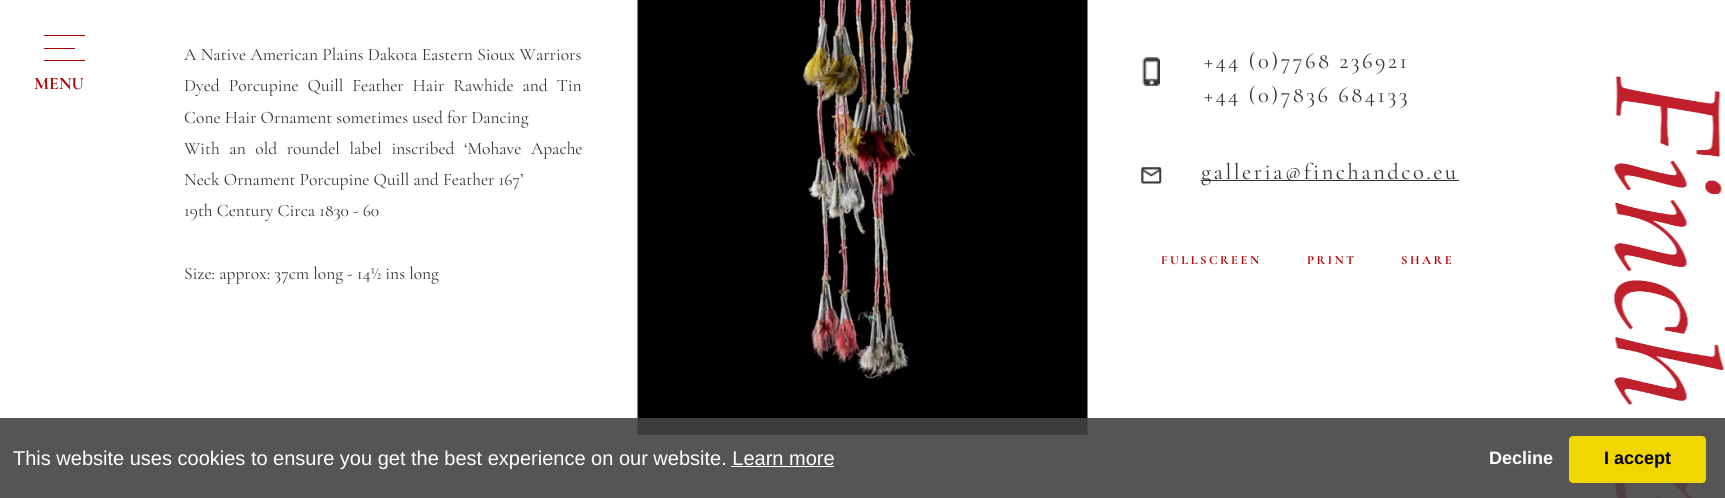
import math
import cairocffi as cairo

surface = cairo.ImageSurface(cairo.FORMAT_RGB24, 1725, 498)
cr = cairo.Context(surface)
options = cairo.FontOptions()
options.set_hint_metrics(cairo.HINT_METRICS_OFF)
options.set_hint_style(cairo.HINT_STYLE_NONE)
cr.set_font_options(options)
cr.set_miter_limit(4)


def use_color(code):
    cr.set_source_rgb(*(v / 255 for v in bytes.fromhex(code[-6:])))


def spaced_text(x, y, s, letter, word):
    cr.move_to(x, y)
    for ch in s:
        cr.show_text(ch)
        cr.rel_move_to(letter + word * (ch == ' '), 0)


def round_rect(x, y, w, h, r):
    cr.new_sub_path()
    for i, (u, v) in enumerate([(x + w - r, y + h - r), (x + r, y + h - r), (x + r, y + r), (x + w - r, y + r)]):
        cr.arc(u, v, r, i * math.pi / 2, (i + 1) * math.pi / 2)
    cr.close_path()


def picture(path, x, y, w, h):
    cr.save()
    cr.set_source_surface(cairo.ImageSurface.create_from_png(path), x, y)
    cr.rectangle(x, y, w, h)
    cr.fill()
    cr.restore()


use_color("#ffffff")
cr.paint()
use_color("#b20000")
cr.rectangle(44, 48, 31, 1)
cr.fill()
cr.rectangle(44, 35, 41, 1)
cr.fill()
cr.rectangle(44, 60, 41, 1)
cr.fill()
cr.select_font_face("Cormorant Garamond", cairo.FONT_SLANT_NORMAL, cairo.FONT_WEIGHT_BOLD)
cr.set_font_size(17.5)
cr.move_to(34, 89)
cr.show_text("MENU")
picture("img1.png", 1613, 76, 112, 422)
cr.select_font_face("Cormorant Garamond")
use_color("#333333")
spaced_text(184, 60, "A Native American Plains Dakota Eastern Sioux Warriors", 0, 0.25)
spaced_text(184, 91, "Dyed Porcupine Quill Feather Hair Rawhide and Tin", 0, 4.75)
cr.move_to(184, 123)
cr.show_text("Cone Hair Ornament sometimes used for Dancing")
spaced_text(184, 154, "With an old roundel label inscribed ‘Mohave Apache", 0, 5.5)
cr.move_to(184, 185)
cr.show_text("Neck Ornament Porcupine Quill and Feather 167’")
cr.move_to(184, 216)
cr.show_text("19th Century Circa 1830 - 60")
cr.move_to(184, 279)
cr.show_text("Size: approx: 37cm long - 14½ ins long")
picture("img2.png", 637, 0, 451, 435)
picture("img3.png", 1142, 57, 18, 29)
cr.set_font_size(22.5)
spaced_text(1204, 68, "+44 (0)7768 236921", 2.5, 0)
spaced_text(1204, 102, "+44 (0)7836 684133", 2.5, 0)
picture("img4.png", 1141, 167, 21, 17)
cr.rectangle(1201, 180, 258, 1)
cr.fill()
spaced_text(1201, 179, "galleria@finchandco.eu", 2.5, 0)
cr.select_font_face("Cormorant Garamond", cairo.FONT_SLANT_NORMAL, cairo.FONT_WEIGHT_BOLD)
cr.set_font_size(12.5)
use_color("#b20000")
spaced_text(1161, 264, "FULLSCREEN", 2.5, 0)
spaced_text(1307, 264, "PRINT", 2.5, 0)
spaced_text(1401, 264, "SHARE", 2.5, 0)
cr.set_source_rgba(0.263, 0.263, 0.263, 0.9)
cr.rectangle(0, 418, 1725, 80)
cr.fill()
cr.select_font_face("Liberation Sans")
cr.set_font_size(20)
use_color("#ffffff")
cr.move_to(13, 465)
cr.show_text("This website uses cookies to ensure you get the best experience on our website. Learn more")
cr.rectangle(731, 466, 103, 1)
cr.fill()
cr.select_font_face("Liberation Sans", cairo.FONT_SLANT_NORMAL, cairo.FONT_WEIGHT_BOLD)
cr.set_font_size(18)
cr.move_to(1489, 464)
cr.show_text("Decline")
use_color("#f1d600")
round_rect(1569, 436, 137, 47, 4)
cr.fill()
use_color("#000000")
cr.move_to(1604, 464)
cr.show_text("I accept")
surface.write_to_png("result.png")
